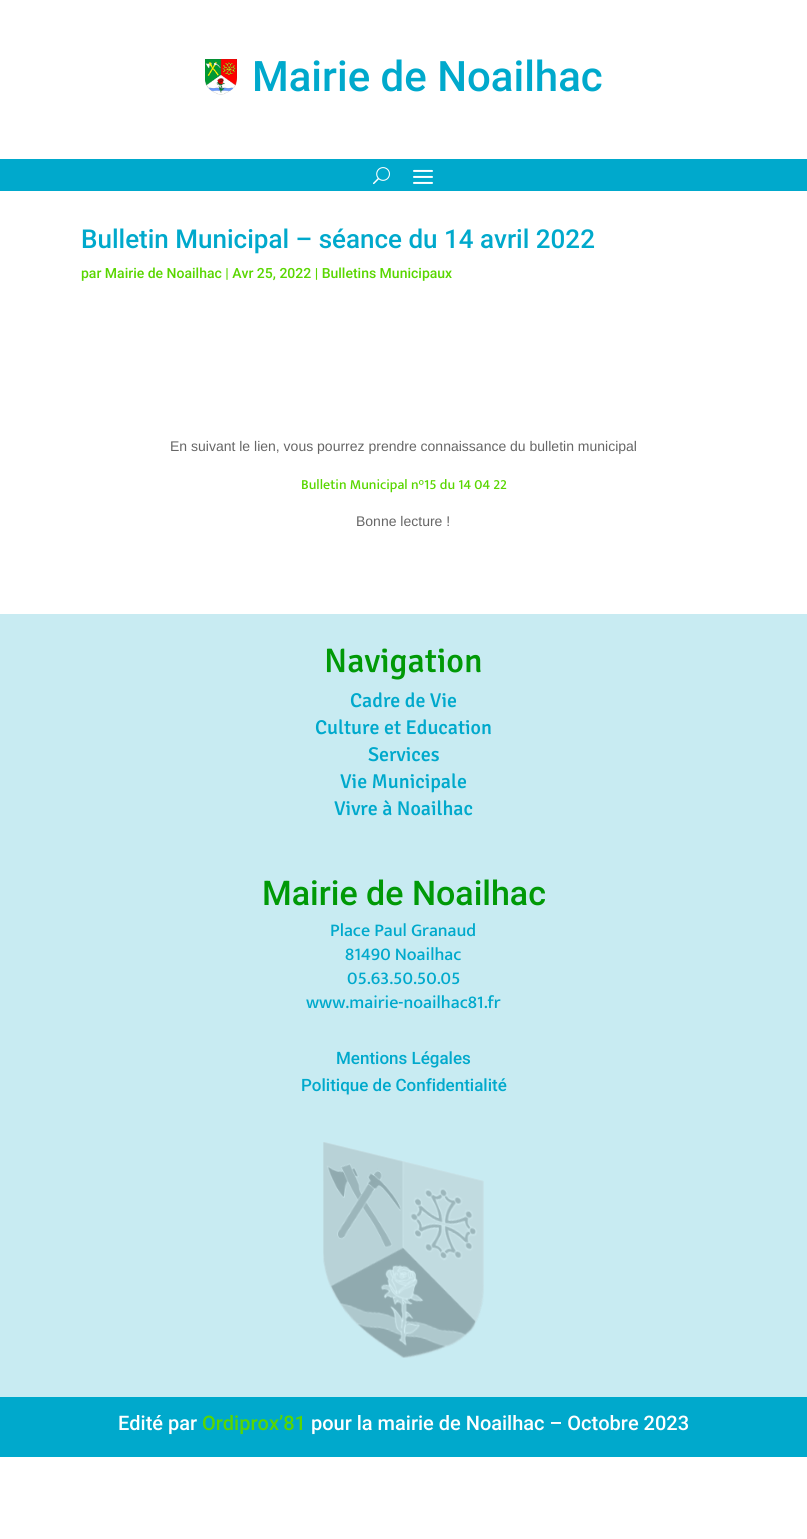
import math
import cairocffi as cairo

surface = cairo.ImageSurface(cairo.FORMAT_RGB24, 807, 1539)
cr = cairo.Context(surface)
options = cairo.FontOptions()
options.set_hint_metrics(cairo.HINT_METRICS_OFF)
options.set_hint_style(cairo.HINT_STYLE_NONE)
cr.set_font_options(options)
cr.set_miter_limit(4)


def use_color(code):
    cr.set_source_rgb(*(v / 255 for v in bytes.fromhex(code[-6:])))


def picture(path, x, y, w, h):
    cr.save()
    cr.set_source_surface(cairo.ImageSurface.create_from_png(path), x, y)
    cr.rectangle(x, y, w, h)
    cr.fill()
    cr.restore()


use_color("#ffffff")
cr.paint()
picture("img1.png", 205, 59, 32, 36)
cr.select_font_face("Roboto Medium")
cr.set_font_size(42)
use_color("#00a9cc")
cr.move_to(252, 91)
cr.show_text("Mairie de Noailhac")
cr.rectangle(0, 159, 807, 32)
cr.fill()
picture("img2.png", 373, 167, 17, 18)
picture("img3.png", 413, 169, 20, 15)
cr.set_font_size(26)
cr.move_to(81, 248)
cr.show_text("Bulletin Municipal – séance du 14 avril 2022")
cr.set_font_size(14)
use_color("#59d600")
cr.move_to(81, 278)
cr.show_text("par Mairie de Noailhac | Avr 25, 2022 | Bulletins Municipaux")
cr.select_font_face("Liberation Sans")
use_color("#666666")
cr.move_to(170, 451)
cr.show_text("En suivant le lien, vous pourrez prendre connaissance du bulletin municipal")
cr.select_font_face("Mukta Vaani Medium")
use_color("#59d600")
cr.move_to(301, 489)
cr.show_text("Bulletin Municipal n°15 du 14 04 22")
cr.select_font_face("Liberation Sans")
use_color("#666666")
cr.move_to(356, 526)
cr.show_text("Bonne lecture !")
use_color("#c8ebf2")
cr.rectangle(0, 614, 807, 783)
cr.fill()
cr.select_font_face("Signika Medium")
cr.set_font_size(34)
use_color("#009907")
cr.move_to(324, 672)
cr.show_text("Navigation")
cr.set_font_size(20)
use_color("#00a9cc")
cr.move_to(350, 707)
cr.show_text("Cadre de Vie")
cr.move_to(315, 734)
cr.show_text("Culture et Education")
cr.move_to(368, 761)
cr.show_text("Services")
cr.move_to(340, 788)
cr.show_text("Vie Municipale")
cr.move_to(334, 815)
cr.show_text("Vivre à Noailhac")
cr.select_font_face("Roboto Medium")
cr.set_font_size(34)
use_color("#009907")
cr.move_to(262, 905)
cr.show_text("Mairie de Noailhac")
cr.select_font_face("Mukta Vaani Medium")
cr.set_font_size(18)
use_color("#00a9cc")
cr.move_to(330, 936)
cr.show_text("Place Paul Granaud")
cr.move_to(345, 960)
cr.show_text("81490 Noailhac")
cr.move_to(347, 984)
cr.show_text("05.63.50.50.05")
cr.move_to(306, 1008)
cr.show_text("www.mairie-noailhac81.fr")
cr.select_font_face("Roboto Medium")
cr.set_font_size(17)
cr.move_to(336, 1064)
cr.show_text("Mentions Légales")
cr.move_to(301, 1091)
cr.show_text("Politique de Confidentialité")
picture("img4.png", 323, 1142, 161, 216)
cr.rectangle(0, 1397, 807, 60)
cr.fill()
cr.set_font_size(20)
use_color("#ffffff")
cr.move_to(118, 1430)
cr.show_text("Edité par")
use_color("#59d600")
cr.move_to(202, 1430)
cr.show_text("Ordiprox’81")
use_color("#ffffff")
cr.move_to(311, 1430)
cr.show_text("pour la mairie de Noailhac – Octobre 2023")
surface.write_to_png("result.png")
